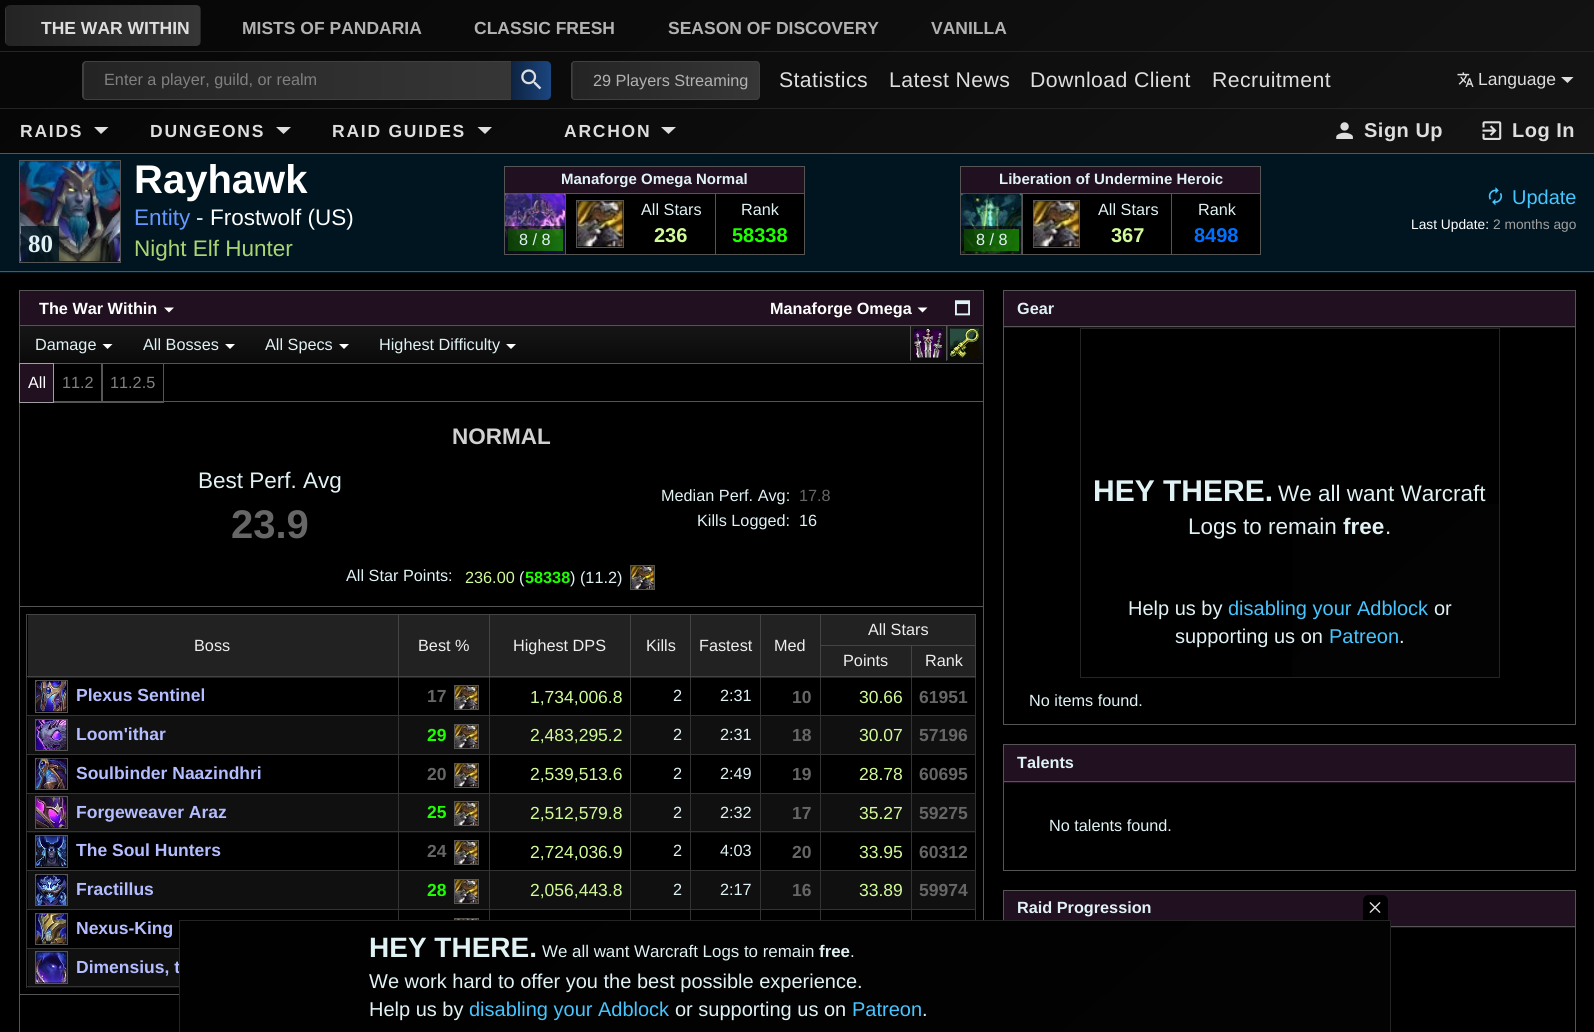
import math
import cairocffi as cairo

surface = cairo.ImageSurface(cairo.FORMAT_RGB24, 1594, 1032)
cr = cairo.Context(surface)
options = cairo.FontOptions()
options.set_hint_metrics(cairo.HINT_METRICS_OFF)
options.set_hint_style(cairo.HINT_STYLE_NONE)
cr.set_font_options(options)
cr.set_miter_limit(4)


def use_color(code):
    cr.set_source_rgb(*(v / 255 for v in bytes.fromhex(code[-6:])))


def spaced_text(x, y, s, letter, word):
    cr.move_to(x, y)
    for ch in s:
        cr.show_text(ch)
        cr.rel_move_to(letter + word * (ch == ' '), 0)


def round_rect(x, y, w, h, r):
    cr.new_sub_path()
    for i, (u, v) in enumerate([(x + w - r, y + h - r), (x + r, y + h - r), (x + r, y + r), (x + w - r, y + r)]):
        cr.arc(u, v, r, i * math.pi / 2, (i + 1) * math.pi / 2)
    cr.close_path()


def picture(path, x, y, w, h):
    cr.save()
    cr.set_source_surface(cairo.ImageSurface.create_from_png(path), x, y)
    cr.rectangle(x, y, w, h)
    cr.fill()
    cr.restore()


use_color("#000000")
cr.paint()
gradient = cairo.LinearGradient(431, -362, 1164, 512)
gradient.add_color_stop_rgba(0, 0.024, 0.024, 0.024, 1)
gradient.add_color_stop_rgba(1, 0.078, 0.078, 0.078, 1)
cr.set_source(gradient)
cr.rectangle(0, 0, 1594, 108)
cr.fill()
use_color("#242424")
cr.rectangle(0, 51, 1594, 1)
cr.fill()
cr.save()
round_rect(5, 5, 196, 41, 5)
cr.clip()
gradient = cairo.LinearGradient(-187, 26, 6.2, 26)
gradient.add_color_stop_rgba(0, 0.141, 0.141, 0.141, 1)
gradient.add_color_stop_rgba(1, 0.212, 0.212, 0.212, 1)
cr.set_source(gradient)
cr.rectangle(5, 5, 1, 41)
cr.fill()
gradient = cairo.LinearGradient(6.2, 26, 200, 26)
gradient.add_color_stop_rgba(0, 0.141, 0.141, 0.141, 1)
gradient.add_color_stop_rgba(1, 0.212, 0.212, 0.212, 1)
cr.set_source(gradient)
cr.rectangle(6, 5, 194, 41)
cr.fill()
gradient = cairo.LinearGradient(200, 26, 394, 26)
gradient.add_color_stop_rgba(0, 0.141, 0.141, 0.141, 1)
gradient.add_color_stop_rgba(1, 0.212, 0.212, 0.212, 1)
cr.set_source(gradient)
cr.rectangle(200, 5, 1, 41)
cr.fill()
cr.restore()
cr.select_font_face("Liberation Sans", cairo.FONT_SLANT_NORMAL, cairo.FONT_WEIGHT_BOLD)
cr.set_font_size(17.5)
use_color("#dedede")
cr.move_to(41, 34)
cr.show_text("THE WAR WITHIN")
use_color("#b2b2b2")
cr.move_to(242, 34)
cr.show_text("MISTS OF PANDARIA")
cr.move_to(474, 34)
cr.show_text("CLASSIC FRESH")
cr.move_to(668, 34)
cr.show_text("SEASON OF DISCOVERY")
cr.move_to(931, 34)
cr.show_text("VANILLA")
use_color("#242424")
cr.rectangle(0, 108, 1594, 1)
cr.fill()
cr.save()
cr.new_path()
cr.move_to(87, 61)
cr.line_to(513, 61)
cr.line_to(513, 100)
cr.line_to(87, 100)
cr.curve_to(85, 100, 83, 98, 83, 96)
cr.line_to(83, 65)
cr.curve_to(83, 63, 85, 61, 87, 61)
cr.close_path()
cr.clip()
gradient = cairo.LinearGradient(84, 81, 513, 81)
gradient.add_color_stop_rgba(0, 0.141, 0.141, 0.141, 1)
gradient.add_color_stop_rgba(1, 0.212, 0.212, 0.212, 1)
cr.set_source(gradient)
cr.rectangle(84, 61, 427, 39)
cr.fill()
cr.restore()
use_color("#404040")
cr.set_fill_rule(cairo.FILL_RULE_EVEN_ODD)
cr.new_path()
cr.move_to(86, 61)
cr.line_to(512, 61)
cr.line_to(512, 100)
cr.line_to(86, 100)
cr.curve_to(84, 100, 82, 98, 82, 96)
cr.line_to(82, 65)
cr.curve_to(82, 63, 84, 61, 86, 61)
cr.close_path()
cr.move_to(86, 62)
cr.line_to(512, 62)
cr.line_to(512, 99)
cr.line_to(86, 99)
cr.curve_to(85, 99, 84, 98, 84, 96)
cr.line_to(84, 65)
cr.curve_to(84, 64, 85, 62, 86, 62)
cr.close_path()
cr.fill()
cr.select_font_face("Liberation Sans")
cr.set_font_size(16.25)
use_color("#808080")
cr.move_to(104, 85)
cr.show_text("Enter a player, guild, or realm")
gradient = cairo.LinearGradient(511, 81, 551, 81)
gradient.add_color_stop_rgba(0, 0.055, 0.137, 0.255, 1)
gradient.add_color_stop_rgba(1, 0.106, 0.275, 0.502, 1)
cr.set_source(gradient)
cr.new_path()
cr.move_to(511, 61)
cr.line_to(546, 61)
cr.curve_to(549, 61, 551, 63, 551, 66)
cr.line_to(551, 95)
cr.curve_to(551, 98, 549, 100, 546, 100)
cr.line_to(511, 100)
cr.close_path()
cr.fill()
picture("img1.png", 521, 69, 21, 21)
cr.save()
cr.set_fill_rule(cairo.FILL_RULE_WINDING)
round_rect(571, 61, 189, 39, 4)
cr.clip()
gradient = cairo.LinearGradient(386, 81, 573, 81)
gradient.add_color_stop_rgba(0, 0.141, 0.141, 0.141, 1)
gradient.add_color_stop_rgba(1, 0.212, 0.212, 0.212, 1)
cr.set_source(gradient)
cr.rectangle(571, 61, 2, 39)
cr.fill()
gradient = cairo.LinearGradient(573, 81, 759, 81)
gradient.add_color_stop_rgba(0, 0.141, 0.141, 0.141, 1)
gradient.add_color_stop_rgba(1, 0.212, 0.212, 0.212, 1)
cr.set_source(gradient)
cr.rectangle(573, 61, 186, 39)
cr.fill()
cr.restore()
round_rect(571.5, 61.5, 188, 38, 3.5)
use_color("#404040")
cr.set_line_width(1)
cr.stroke()
use_color("#b2b2b2")
cr.move_to(593, 86)
cr.show_text("29 Players Streaming")
cr.set_font_size(21.25)
use_color("#dedede")
spaced_text(779, 87, "Statistics", 0.4, 0)
spaced_text(889, 87, "Latest News", 0.4, 0)
spaced_text(1030, 87, "Download Client", 0.4, 0)
spaced_text(1212, 87, "Recruitment", 0.4, 0)
picture("img2.png", 1457, 72, 17, 15)
cr.set_font_size(17.5)
cr.move_to(1478, 85)
cr.show_text("Language")
cr.set_fill_rule(cairo.FILL_RULE_WINDING)
cr.new_path()
cr.move_to(1561, 77)
cr.line_to(1573.5, 77)
cr.line_to(1567.5, 83)
cr.close_path()
cr.fill()
gradient = cairo.LinearGradient(457, -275, 1138, 536)
gradient.add_color_stop_rgba(0, 0.024, 0.024, 0.024, 1)
gradient.add_color_stop_rgba(1, 0.078, 0.078, 0.078, 1)
cr.set_source(gradient)
cr.rectangle(0, 109, 1594, 44)
cr.fill()
use_color("#555555")
cr.rectangle(0, 153, 1594, 1)
cr.fill()
cr.select_font_face("Liberation Sans", cairo.FONT_SLANT_NORMAL, cairo.FONT_WEIGHT_BOLD)
use_color("#dedede")
spaced_text(20, 137, "RAIDS", 1.75, 0)
cr.new_path()
cr.move_to(94, 127)
cr.line_to(108.5, 127)
cr.line_to(101, 134)
cr.close_path()
cr.fill()
spaced_text(150, 137, "DUNGEONS", 1.75, 0)
cr.new_path()
cr.move_to(276, 127)
cr.line_to(291, 127)
cr.line_to(283.5, 134)
cr.close_path()
cr.fill()
spaced_text(332, 137, "RAID GUIDES", 1.75, 0)
cr.new_path()
cr.move_to(477.5, 127)
cr.line_to(492, 127)
cr.line_to(485, 134)
cr.close_path()
cr.fill()
spaced_text(564, 137, "ARCHON", 1.75, 0)
cr.new_path()
cr.move_to(661, 127)
cr.line_to(676, 127)
cr.line_to(668.5, 134)
cr.close_path()
cr.fill()
picture("img3.png", 1336, 122, 17, 17)
cr.set_font_size(20)
spaced_text(1364, 137, "Sign Up", 0.5, 0)
picture("img4.png", 1482, 121, 20, 19)
spaced_text(1512, 137, "Log In", 0.5, 0)
use_color("#001520")
cr.rectangle(0, 154, 1594, 119)
cr.fill()
use_color("#555555")
cr.rectangle(0, 271, 1594, 1)
cr.fill()
cr.rectangle(19.5, 160.5, 101, 102)
cr.stroke()
picture("img5.png", 20, 161, 100, 101)
cr.set_source_rgba(0, 0.082, 0.125, 0.8)
cr.rectangle(21, 226, 38, 35)
cr.fill()
cr.select_font_face("Liberation Serif", cairo.FONT_SLANT_NORMAL, cairo.FONT_WEIGHT_BOLD)
cr.set_font_size(25)
use_color("#e1f2f5")
cr.move_to(28, 252)
cr.show_text("80")
cr.select_font_face("Liberation Sans", cairo.FONT_SLANT_NORMAL, cairo.FONT_WEIGHT_BOLD)
cr.set_font_size(40)
use_color("#ffffff")
cr.move_to(134, 193)
cr.show_text("Rayhawk")
cr.select_font_face("Liberation Sans")
cr.set_font_size(22.5)
use_color("#6699ff")
cr.move_to(134, 225)
cr.show_text("Entity")
use_color("#e1f2f5")
cr.move_to(196, 225)
cr.show_text("-")
use_color("#ffffff")
cr.move_to(210, 225)
cr.show_text("Frostwolf (US)")
use_color("#abd473")
cr.move_to(134, 256)
cr.show_text("Night Elf Hunter")
use_color("#201020")
cr.rectangle(504.5, 166.5, 300, 27)
cr.fill_preserve()
use_color("#555555")
cr.stroke()
cr.select_font_face("Liberation Sans", cairo.FONT_SLANT_NORMAL, cairo.FONT_WEIGHT_BOLD)
cr.set_font_size(15)
use_color("#e1f2f5")
cr.move_to(561, 184)
cr.show_text("Manaforge Omega Normal")
use_color("#000000")
cr.rectangle(565.5, 193.5, 239, 61)
cr.fill_preserve()
use_color("#555555")
cr.stroke()
cr.rectangle(504.5, 193.5, 61, 61)
cr.stroke()
picture("img6.png", 505, 193, 60, 61)
cr.set_source_rgba(0, 0, 0, 0.6)
cr.rectangle(505, 226, 60, 28)
cr.fill()
gradient = cairo.LinearGradient(508, 240, 563, 240)
gradient.add_color_stop_rgba(0, 0.051, 0.29, 0, 0.75)
gradient.add_color_stop_rgba(1, 0.106, 0.588, 0.004, 0.75)
cr.set_source(gradient)
cr.rectangle(508, 229, 55, 22)
cr.fill()
cr.select_font_face("Liberation Sans")
cr.set_font_size(16.25)
use_color("#e1f2f5")
cr.move_to(519, 245)
cr.show_text("8 / 8")
cr.rectangle(576.5, 200.5, 47, 47)
use_color("#555555")
cr.stroke()
picture("img7.png", 577, 201, 46, 46)
use_color("#e1f2f5")
cr.move_to(641, 215)
cr.show_text("All Stars")
cr.select_font_face("Liberation Sans", cairo.FONT_SLANT_NORMAL, cairo.FONT_WEIGHT_BOLD)
cr.set_font_size(20)
use_color("#d1fa99")
cr.move_to(654, 242)
cr.show_text("236")
use_color("#555555")
cr.rectangle(715, 194, 1, 60)
cr.fill()
cr.select_font_face("Liberation Sans")
cr.set_font_size(16.25)
use_color("#e1f2f5")
cr.move_to(741, 215)
cr.show_text("Rank")
cr.select_font_face("Liberation Sans", cairo.FONT_SLANT_NORMAL, cairo.FONT_WEIGHT_BOLD)
cr.set_font_size(20)
use_color("#1eff00")
cr.move_to(732, 242)
cr.show_text("58338")
use_color("#201020")
cr.rectangle(960.5, 166.5, 300, 27)
cr.fill_preserve()
use_color("#555555")
cr.stroke()
cr.set_font_size(15)
use_color("#e1f2f5")
cr.move_to(999, 184)
cr.show_text("Liberation of Undermine Heroic")
use_color("#000000")
cr.rectangle(1023, 194, 237, 60)
cr.fill()
cr.rectangle(1021.5, 193.5, 239, 61)
use_color("#555555")
cr.stroke()
cr.rectangle(960.5, 193.5, 62, 61)
cr.stroke()
picture("img8.png", 961, 193, 61, 61)
cr.set_source_rgba(0, 0, 0, 0.6)
cr.rectangle(961, 226, 60, 28)
cr.fill()
gradient = cairo.LinearGradient(964, 240, 1019, 240)
gradient.add_color_stop_rgba(0, 0.051, 0.29, 0, 0.75)
gradient.add_color_stop_rgba(1, 0.106, 0.588, 0.004, 0.75)
cr.set_source(gradient)
cr.rectangle(964, 229, 55, 22)
cr.fill()
cr.select_font_face("Liberation Sans")
cr.set_font_size(16.25)
use_color("#e1f2f5")
cr.move_to(976, 245)
cr.show_text("8 / 8")
cr.rectangle(1033.5, 200.5, 46, 47)
use_color("#555555")
cr.stroke()
picture("img9.png", 1033, 201, 46, 46)
use_color("#e1f2f5")
cr.move_to(1098, 215)
cr.show_text("All Stars")
cr.select_font_face("Liberation Sans", cairo.FONT_SLANT_NORMAL, cairo.FONT_WEIGHT_BOLD)
cr.set_font_size(20)
use_color("#d1fa99")
cr.move_to(1111, 242)
cr.show_text("367")
use_color("#555555")
cr.rectangle(1171, 194, 1, 60)
cr.fill()
cr.select_font_face("Liberation Sans")
cr.set_font_size(16.25)
use_color("#e1f2f5")
cr.move_to(1198, 215)
cr.show_text("Rank")
cr.select_font_face("Liberation Sans", cairo.FONT_SLANT_NORMAL, cairo.FONT_WEIGHT_BOLD)
cr.set_font_size(20)
use_color("#0070ff")
cr.move_to(1194, 242)
cr.show_text("8498")
picture("img10.png", 1488, 187, 15, 19)
cr.select_font_face("Liberation Sans")
use_color("#46c5ff")
cr.move_to(1512, 204)
cr.show_text("Update")
cr.set_font_size(13.75)
use_color("#ffffff")
cr.move_to(1411, 229)
cr.show_text("Last Update:")
use_color("#a0a0a0")
cr.move_to(1493, 229)
cr.show_text("2 months ago")
cr.rectangle(19.5, 290.5, 964, 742)
use_color("#555555")
cr.stroke()
use_color("#201020")
cr.rectangle(20, 291, 963, 34)
cr.fill()
use_color("#555555")
cr.rectangle(20, 325, 963, 1)
cr.fill()
cr.select_font_face("Liberation Sans", cairo.FONT_SLANT_NORMAL, cairo.FONT_WEIGHT_BOLD)
cr.set_font_size(16.25)
use_color("#ffffff")
cr.move_to(39, 314)
cr.show_text("The War Within")
cr.new_path()
cr.move_to(164, 307.5)
cr.line_to(174, 307.5)
cr.line_to(169, 312.5)
cr.close_path()
cr.fill()
cr.move_to(770, 314)
cr.show_text("Manaforge Omega")
cr.new_path()
cr.move_to(917.5, 307.5)
cr.line_to(927.5, 307.5)
cr.line_to(922.5, 312.5)
cr.close_path()
cr.fill()
picture("img11.png", 955, 300, 15, 16)
use_color("#555555")
cr.rectangle(20, 994, 159, 1)
cr.fill()
gradient = cairo.LinearGradient(501, 326, 501, 363)
gradient.add_color_stop_rgba(0, 0.086, 0.086, 0.086, 1)
gradient.add_color_stop_rgba(1, 0.039, 0.039, 0.039, 1)
cr.set_source(gradient)
cr.rectangle(20, 326, 963, 37)
cr.fill()
use_color("#555555")
cr.rectangle(164, 363, 819, 1)
cr.fill()
cr.select_font_face("Liberation Sans")
use_color("#e1f2f5")
cr.move_to(35, 350)
cr.show_text("Damage")
use_color("#ffffff")
cr.new_path()
cr.move_to(102.5, 344)
cr.line_to(112.5, 344)
cr.line_to(107.5, 349)
cr.close_path()
cr.fill()
use_color("#e1f2f5")
cr.move_to(143, 350)
cr.show_text("All Bosses")
use_color("#ffffff")
cr.new_path()
cr.move_to(225, 344)
cr.line_to(235, 344)
cr.line_to(230, 349)
cr.close_path()
cr.fill()
use_color("#e1f2f5")
cr.move_to(265, 350)
cr.show_text("All Specs")
use_color("#ffffff")
cr.new_path()
cr.move_to(339, 344)
cr.line_to(349, 344)
cr.line_to(344, 349)
cr.close_path()
cr.fill()
use_color("#e1f2f5")
cr.move_to(379, 350)
cr.show_text("Highest Difficulty")
use_color("#ffffff")
cr.new_path()
cr.move_to(506, 344)
cr.line_to(516, 344)
cr.line_to(511, 349)
cr.close_path()
cr.fill()
use_color("#555555")
cr.new_path()
cr.move_to(910, 361)
cr.line_to(910, 325)
cr.line_to(911, 326)
cr.line_to(911, 360)
cr.close_path()
cr.fill()
picture("img12.png", 913, 328, 30, 30)
cr.new_path()
cr.move_to(946, 361)
cr.line_to(946, 325)
cr.line_to(947.5, 326)
cr.line_to(947.5, 360)
cr.close_path()
cr.fill()
picture("img13.png", 950, 328, 29, 30)
cr.rectangle(54, 401, 929, 1)
cr.fill()
cr.rectangle(53.5, 363.5, 49, 39)
cr.stroke()
use_color("#201020")
cr.rectangle(19.5, 363.5, 34, 39)
cr.fill_preserve()
use_color("#a0a0a0")
cr.stroke()
use_color("#ffffff")
cr.move_to(28, 388)
cr.show_text("All")
use_color("#808080")
cr.move_to(62, 388)
cr.show_text("11.2")
cr.rectangle(101.5, 363.5, 62, 39)
use_color("#555555")
cr.stroke()
use_color("#808080")
cr.move_to(110, 388)
cr.show_text("11.2.5")
use_color("#555555")
cr.rectangle(20, 606, 963, 1)
cr.fill()
cr.select_font_face("Liberation Sans", cairo.FONT_SLANT_NORMAL, cairo.FONT_WEIGHT_BOLD)
cr.set_font_size(22.5)
use_color("#d0d0d0")
cr.move_to(452, 444)
cr.show_text("NORMAL")
cr.select_font_face("Liberation Sans")
use_color("#e1f2f5")
cr.move_to(198, 488)
cr.show_text("Best Perf. Avg")
cr.select_font_face("Liberation Sans", cairo.FONT_SLANT_NORMAL, cairo.FONT_WEIGHT_BOLD)
cr.set_font_size(40)
use_color("#666666")
cr.move_to(231, 538)
cr.show_text("23.9")
cr.select_font_face("Liberation Sans")
cr.set_font_size(16.25)
use_color("#e1f2f5")
cr.move_to(661, 501)
cr.show_text("Median Perf. Avg:")
use_color("#666666")
cr.move_to(799, 501)
cr.show_text("17.8")
use_color("#e1f2f5")
cr.move_to(697, 526)
cr.show_text("Kills Logged:")
cr.move_to(799, 526)
cr.show_text("16")
cr.move_to(346, 581)
cr.show_text("All Star Points:")
cr.rectangle(630.5, 565.5, 24, 24)
use_color("#555555")
cr.stroke()
use_color("#d1fa99")
cr.move_to(465, 583)
cr.show_text("236.00")
use_color("#e1f2f5")
cr.move_to(519, 583)
cr.show_text("(")
cr.select_font_face("Liberation Sans", cairo.FONT_SLANT_NORMAL, cairo.FONT_WEIGHT_BOLD)
use_color("#1eff00")
cr.move_to(525, 583)
cr.show_text("58338")
cr.select_font_face("Liberation Sans")
use_color("#e1f2f5")
cr.move_to(570, 583)
cr.show_text(") (11.2)")
picture("img14.png", 631, 566, 23, 23)
use_color("#222222")
cr.rectangle(821, 615, 154, 30)
cr.fill()
use_color("#444444")
cr.rectangle(820, 614, 156, 1)
cr.fill()
cr.rectangle(911, 645, 65, 1)
cr.fill()
use_color("#333333")
cr.rectangle(911, 715, 65, 1)
cr.fill()
cr.rectangle(911, 754, 65, 1)
cr.fill()
cr.rectangle(911, 793, 65, 1)
cr.fill()
use_color("#101010")
cr.rectangle(28, 794, 947, 39)
cr.fill()
use_color("#333333")
cr.rectangle(911, 831, 65, 1)
cr.fill()
cr.rectangle(911, 870, 65, 1)
cr.fill()
cr.rectangle(911, 909, 65, 1)
cr.fill()
cr.rectangle(975, 909, 1, 11)
cr.fill()
cr.rectangle(975, 870, 1, 40)
cr.fill()
cr.rectangle(975, 831, 1, 40)
cr.fill()
cr.rectangle(975, 793, 1, 40)
cr.fill()
cr.rectangle(975, 754, 1, 40)
cr.fill()
cr.rectangle(975, 676, 1, 79)
cr.fill()
use_color("#444444")
cr.rectangle(975, 645, 1, 33)
cr.fill()
cr.rectangle(975, 614, 1, 32)
cr.fill()
use_color("#222222")
cr.rectangle(912, 646, 63, 32)
cr.fill()
use_color("#101010")
cr.rectangle(28, 716, 947, 38)
cr.fill()
cr.rectangle(28, 871, 947, 38)
cr.fill()
use_color("#333333")
cr.rectangle(911, 909, 1, 11)
cr.fill()
cr.rectangle(820, 909, 93, 1)
cr.fill()
cr.rectangle(911, 870, 1, 40)
cr.fill()
cr.rectangle(820, 870, 93, 1)
cr.fill()
cr.rectangle(911, 831, 1, 40)
cr.fill()
cr.rectangle(820, 831, 93, 1)
cr.fill()
cr.rectangle(911, 793, 1, 40)
cr.fill()
cr.rectangle(820, 793, 93, 1)
cr.fill()
cr.rectangle(911, 754, 1, 40)
cr.fill()
cr.rectangle(820, 754, 93, 1)
cr.fill()
cr.rectangle(911, 715, 1, 40)
cr.fill()
cr.rectangle(820, 715, 93, 1)
cr.fill()
cr.rectangle(911, 676, 1, 40)
cr.fill()
use_color("#444444")
cr.rectangle(911, 676, 65, 1)
cr.fill()
cr.rectangle(911, 645, 1, 33)
cr.fill()
cr.rectangle(820, 645, 93, 1)
cr.fill()
use_color("#222222")
cr.rectangle(821, 646, 90, 32)
cr.fill()
use_color("#333333")
cr.rectangle(820, 909, 1, 11)
cr.fill()
cr.rectangle(760, 909, 61, 1)
cr.fill()
cr.rectangle(820, 870, 1, 40)
cr.fill()
cr.rectangle(760, 870, 61, 1)
cr.fill()
cr.rectangle(820, 831, 1, 40)
cr.fill()
cr.rectangle(760, 831, 61, 1)
cr.fill()
cr.rectangle(820, 793, 1, 40)
cr.fill()
cr.rectangle(760, 793, 61, 1)
cr.fill()
cr.rectangle(820, 754, 1, 40)
cr.fill()
cr.rectangle(760, 754, 61, 1)
cr.fill()
cr.rectangle(820, 715, 1, 40)
cr.fill()
cr.rectangle(760, 715, 61, 1)
cr.fill()
cr.rectangle(820, 676, 1, 40)
cr.fill()
use_color("#444444")
cr.rectangle(820, 676, 93, 1)
cr.fill()
cr.rectangle(820, 645, 1, 33)
cr.fill()
cr.rectangle(820, 614, 1, 32)
cr.fill()
use_color("#eeeeee")
cr.move_to(868, 635)
cr.show_text("All Stars")
use_color("#222222")
cr.rectangle(28, 615, 370, 63)
cr.fill()
use_color("#444444")
cr.rectangle(760, 614, 61, 1)
cr.fill()
use_color("#222222")
cr.rectangle(761, 615, 59, 63)
cr.fill()
use_color("#333333")
cr.rectangle(760, 909, 1, 11)
cr.fill()
cr.rectangle(690, 909, 71, 1)
cr.fill()
cr.rectangle(760, 870, 1, 40)
cr.fill()
cr.rectangle(690, 870, 71, 1)
cr.fill()
cr.rectangle(760, 831, 1, 40)
cr.fill()
cr.rectangle(690, 831, 71, 1)
cr.fill()
cr.rectangle(760, 793, 1, 40)
cr.fill()
cr.rectangle(690, 793, 71, 1)
cr.fill()
cr.rectangle(760, 754, 1, 40)
cr.fill()
cr.rectangle(690, 754, 71, 1)
cr.fill()
cr.rectangle(760, 715, 1, 40)
cr.fill()
cr.rectangle(690, 715, 71, 1)
cr.fill()
cr.rectangle(760, 676, 1, 40)
cr.fill()
use_color("#444444")
cr.rectangle(760, 676, 61, 1)
cr.fill()
cr.rectangle(760, 614, 1, 64)
cr.fill()
cr.rectangle(690, 614, 71, 1)
cr.fill()
use_color("#222222")
cr.rectangle(691, 615, 69, 63)
cr.fill()
use_color("#333333")
cr.rectangle(690, 909, 1, 11)
cr.fill()
cr.rectangle(630, 909, 61, 1)
cr.fill()
cr.rectangle(690, 870, 1, 40)
cr.fill()
cr.rectangle(630, 870, 61, 1)
cr.fill()
cr.rectangle(690, 831, 1, 40)
cr.fill()
cr.rectangle(630, 831, 61, 1)
cr.fill()
cr.rectangle(690, 793, 1, 40)
cr.fill()
cr.rectangle(630, 793, 61, 1)
cr.fill()
cr.rectangle(690, 754, 1, 40)
cr.fill()
cr.rectangle(630, 754, 61, 1)
cr.fill()
cr.rectangle(690, 715, 1, 40)
cr.fill()
cr.rectangle(630, 715, 61, 1)
cr.fill()
cr.rectangle(690, 676, 1, 40)
cr.fill()
use_color("#444444")
cr.rectangle(690, 676, 71, 1)
cr.fill()
cr.rectangle(690, 614, 1, 64)
cr.fill()
cr.rectangle(630, 614, 61, 1)
cr.fill()
use_color("#222222")
cr.rectangle(631, 615, 59, 63)
cr.fill()
use_color("#333333")
cr.rectangle(630, 909, 1, 11)
cr.fill()
cr.rectangle(489, 909, 142, 1)
cr.fill()
cr.rectangle(630, 870, 1, 40)
cr.fill()
cr.rectangle(489, 870, 142, 1)
cr.fill()
cr.rectangle(630, 831, 1, 40)
cr.fill()
cr.rectangle(489, 831, 142, 1)
cr.fill()
cr.rectangle(630, 793, 1, 40)
cr.fill()
cr.rectangle(489, 793, 142, 1)
cr.fill()
cr.rectangle(630, 754, 1, 40)
cr.fill()
cr.rectangle(489, 754, 142, 1)
cr.fill()
cr.rectangle(630, 715, 1, 40)
cr.fill()
cr.rectangle(489, 715, 142, 1)
cr.fill()
cr.rectangle(630, 676, 1, 40)
cr.fill()
use_color("#444444")
cr.rectangle(630, 676, 61, 1)
cr.fill()
cr.rectangle(630, 614, 1, 64)
cr.fill()
cr.rectangle(489, 614, 142, 1)
cr.fill()
use_color("#222222")
cr.rectangle(490, 615, 140, 63)
cr.fill()
use_color("#333333")
cr.rectangle(489, 909, 1, 11)
cr.fill()
cr.rectangle(398, 909, 92, 1)
cr.fill()
cr.rectangle(489, 870, 1, 40)
cr.fill()
cr.rectangle(398, 870, 92, 1)
cr.fill()
cr.rectangle(489, 831, 1, 40)
cr.fill()
cr.rectangle(398, 831, 92, 1)
cr.fill()
cr.rectangle(489, 793, 1, 40)
cr.fill()
cr.rectangle(398, 793, 92, 1)
cr.fill()
cr.rectangle(489, 754, 1, 40)
cr.fill()
cr.rectangle(398, 754, 92, 1)
cr.fill()
cr.rectangle(489, 715, 1, 40)
cr.fill()
cr.rectangle(398, 715, 92, 1)
cr.fill()
cr.rectangle(489, 676, 1, 40)
cr.fill()
use_color("#444444")
cr.rectangle(489, 676, 142, 1)
cr.fill()
cr.rectangle(489, 614, 1, 64)
cr.fill()
cr.rectangle(398, 614, 92, 1)
cr.fill()
use_color("#222222")
cr.rectangle(399, 615, 90, 63)
cr.fill()
use_color("#333333")
cr.rectangle(398, 909, 1, 11)
cr.fill()
cr.rectangle(26, 909, 373, 1)
cr.fill()
cr.rectangle(398, 870, 1, 40)
cr.fill()
cr.rectangle(26, 870, 373, 1)
cr.fill()
cr.rectangle(398, 831, 1, 40)
cr.fill()
cr.rectangle(26, 831, 373, 1)
cr.fill()
cr.rectangle(398, 793, 1, 40)
cr.fill()
cr.rectangle(26, 793, 373, 1)
cr.fill()
cr.rectangle(398, 754, 1, 40)
cr.fill()
cr.rectangle(26, 754, 373, 1)
cr.fill()
cr.rectangle(398, 715, 1, 40)
cr.fill()
cr.rectangle(26, 715, 373, 1)
cr.fill()
cr.rectangle(398, 676, 1, 40)
cr.fill()
use_color("#444444")
cr.rectangle(398, 676, 92, 1)
cr.fill()
cr.rectangle(398, 614, 1, 64)
cr.fill()
cr.rectangle(26, 614, 373, 1)
cr.fill()
use_color("#333333")
cr.rectangle(26, 948, 153, 1)
cr.fill()
use_color("#101010")
cr.rectangle(28, 949, 151, 39)
cr.fill()
use_color("#333333")
cr.rectangle(26, 986, 153, 1)
cr.fill()
cr.rectangle(26, 948, 1, 40)
cr.fill()
cr.rectangle(26, 909, 1, 40)
cr.fill()
cr.rectangle(26, 870, 1, 40)
cr.fill()
cr.rectangle(26, 831, 1, 40)
cr.fill()
cr.rectangle(26, 793, 1, 40)
cr.fill()
cr.rectangle(26, 754, 1, 40)
cr.fill()
cr.rectangle(26, 676, 1, 79)
cr.fill()
use_color("#444444")
cr.rectangle(26, 676, 373, 1)
cr.fill()
cr.rectangle(26, 614, 1, 64)
cr.fill()
use_color("#eeeeee")
cr.move_to(194, 651)
cr.show_text("Boss")
cr.move_to(418, 651)
cr.show_text("Best %")
cr.move_to(513, 651)
cr.show_text("Highest DPS")
cr.move_to(646, 651)
cr.show_text("Kills")
cr.move_to(699, 651)
cr.show_text("Fastest")
cr.move_to(774, 651)
cr.show_text("Med")
cr.move_to(843, 666)
cr.show_text("Points")
cr.move_to(925, 666)
cr.show_text("Rank")
cr.rectangle(35.5, 680.5, 32, 32)
use_color("#555555")
cr.stroke()
picture("img15.png", 36, 681, 31, 31)
cr.select_font_face("Liberation Sans", cairo.FONT_SLANT_NORMAL, cairo.FONT_WEIGHT_BOLD)
cr.set_font_size(17.5)
use_color("#b4bdff")
cr.move_to(76, 701)
cr.show_text("Plexus Sentinel")
cr.rectangle(454.5, 685.5, 24, 24)
use_color("#555555")
cr.stroke()
use_color("#666666")
cr.move_to(427, 702)
cr.show_text("17")
picture("img16.png", 455, 686, 23, 23)
cr.select_font_face("Liberation Sans")
use_color("#d1fa99")
cr.move_to(530, 703)
cr.show_text("1,734,006.8")
cr.set_font_size(16.25)
use_color("#e1f2f5")
cr.move_to(673, 701)
cr.show_text("2")
cr.move_to(720, 701)
cr.show_text("2:31")
cr.select_font_face("Liberation Sans", cairo.FONT_SLANT_NORMAL, cairo.FONT_WEIGHT_BOLD)
cr.set_font_size(17.5)
use_color("#666666")
cr.move_to(792, 703)
cr.show_text("10")
cr.select_font_face("Liberation Sans")
use_color("#d1fa99")
cr.move_to(859, 703)
cr.show_text("30.66")
cr.select_font_face("Liberation Sans", cairo.FONT_SLANT_NORMAL, cairo.FONT_WEIGHT_BOLD)
use_color("#666666")
cr.move_to(919, 703)
cr.show_text("61951")
cr.rectangle(35.5, 719.5, 32, 31)
use_color("#555555")
cr.stroke()
picture("img17.png", 36, 720, 31, 30)
use_color("#b4bdff")
cr.move_to(76, 740)
cr.show_text("Loom'ithar")
cr.rectangle(454.5, 724.5, 24, 24)
use_color("#555555")
cr.stroke()
use_color("#1eff00")
cr.move_to(427, 741)
cr.show_text("29")
picture("img18.png", 455, 725, 23, 23)
cr.select_font_face("Liberation Sans")
use_color("#d1fa99")
cr.move_to(530, 741)
cr.show_text("2,483,295.2")
cr.set_font_size(16.25)
use_color("#e1f2f5")
cr.move_to(673, 740)
cr.show_text("2")
cr.move_to(720, 740)
cr.show_text("2:31")
cr.select_font_face("Liberation Sans", cairo.FONT_SLANT_NORMAL, cairo.FONT_WEIGHT_BOLD)
cr.set_font_size(17.5)
use_color("#666666")
cr.move_to(792, 741)
cr.show_text("18")
cr.select_font_face("Liberation Sans")
use_color("#d1fa99")
cr.move_to(859, 741)
cr.show_text("30.07")
cr.select_font_face("Liberation Sans", cairo.FONT_SLANT_NORMAL, cairo.FONT_WEIGHT_BOLD)
use_color("#666666")
cr.move_to(919, 741)
cr.show_text("57196")
cr.rectangle(35.5, 758.5, 32, 31)
use_color("#555555")
cr.stroke()
picture("img19.png", 36, 758, 31, 31)
use_color("#b4bdff")
cr.move_to(76, 779)
cr.show_text("Soulbinder Naazindhri")
cr.rectangle(454.5, 763.5, 24, 24)
use_color("#555555")
cr.stroke()
use_color("#666666")
cr.move_to(427, 780)
cr.show_text("20")
picture("img20.png", 455, 763, 23, 24)
cr.select_font_face("Liberation Sans")
use_color("#d1fa99")
cr.move_to(530, 780)
cr.show_text("2,539,513.6")
cr.set_font_size(16.25)
use_color("#e1f2f5")
cr.move_to(673, 779)
cr.show_text("2")
cr.move_to(720, 779)
cr.show_text("2:49")
cr.select_font_face("Liberation Sans", cairo.FONT_SLANT_NORMAL, cairo.FONT_WEIGHT_BOLD)
cr.set_font_size(17.5)
use_color("#666666")
cr.move_to(792, 780)
cr.show_text("19")
cr.select_font_face("Liberation Sans")
use_color("#d1fa99")
cr.move_to(859, 780)
cr.show_text("28.78")
cr.select_font_face("Liberation Sans", cairo.FONT_SLANT_NORMAL, cairo.FONT_WEIGHT_BOLD)
use_color("#666666")
cr.move_to(919, 780)
cr.show_text("60695")
cr.rectangle(35.5, 796.5, 32, 32)
use_color("#555555")
cr.stroke()
picture("img21.png", 36, 797, 31, 31)
use_color("#b4bdff")
cr.move_to(76, 818)
cr.show_text("Forgeweaver Araz")
cr.rectangle(454.5, 801.5, 24, 24)
use_color("#555555")
cr.stroke()
use_color("#1eff00")
cr.move_to(427, 818)
cr.show_text("25")
picture("img22.png", 455, 802, 23, 23)
cr.select_font_face("Liberation Sans")
use_color("#d1fa99")
cr.move_to(530, 819)
cr.show_text("2,512,579.8")
cr.set_font_size(16.25)
use_color("#e1f2f5")
cr.move_to(673, 818)
cr.show_text("2")
cr.move_to(720, 818)
cr.show_text("2:32")
cr.select_font_face("Liberation Sans", cairo.FONT_SLANT_NORMAL, cairo.FONT_WEIGHT_BOLD)
cr.set_font_size(17.5)
use_color("#666666")
cr.move_to(792, 819)
cr.show_text("17")
cr.select_font_face("Liberation Sans")
use_color("#d1fa99")
cr.move_to(859, 819)
cr.show_text("35.27")
cr.select_font_face("Liberation Sans", cairo.FONT_SLANT_NORMAL, cairo.FONT_WEIGHT_BOLD)
use_color("#666666")
cr.move_to(919, 819)
cr.show_text("59275")
cr.rectangle(35.5, 835.5, 32, 32)
use_color("#555555")
cr.stroke()
picture("img23.png", 36, 836, 31, 31)
use_color("#b4bdff")
cr.move_to(76, 856)
cr.show_text("The Soul Hunters")
cr.rectangle(454.5, 840.5, 24, 24)
use_color("#555555")
cr.stroke()
use_color("#666666")
cr.move_to(427, 857)
cr.show_text("24")
picture("img16.png", 455, 841, 23, 23)
cr.select_font_face("Liberation Sans")
use_color("#d1fa99")
cr.move_to(530, 858)
cr.show_text("2,724,036.9")
cr.set_font_size(16.25)
use_color("#e1f2f5")
cr.move_to(673, 856)
cr.show_text("2")
cr.move_to(720, 856)
cr.show_text("4:03")
cr.select_font_face("Liberation Sans", cairo.FONT_SLANT_NORMAL, cairo.FONT_WEIGHT_BOLD)
cr.set_font_size(17.5)
use_color("#666666")
cr.move_to(792, 858)
cr.show_text("20")
cr.select_font_face("Liberation Sans")
use_color("#d1fa99")
cr.move_to(859, 858)
cr.show_text("33.95")
cr.select_font_face("Liberation Sans", cairo.FONT_SLANT_NORMAL, cairo.FONT_WEIGHT_BOLD)
use_color("#666666")
cr.move_to(919, 858)
cr.show_text("60312")
cr.rectangle(35.5, 874.5, 32, 31)
use_color("#555555")
cr.stroke()
picture("img24.png", 36, 875, 31, 30)
use_color("#b4bdff")
cr.move_to(76, 895)
cr.show_text("Fractillus")
cr.rectangle(454.5, 879.5, 24, 24)
use_color("#555555")
cr.stroke()
use_color("#1eff00")
cr.move_to(427, 896)
cr.show_text("28")
picture("img18.png", 455, 880, 23, 23)
cr.select_font_face("Liberation Sans")
use_color("#d1fa99")
cr.move_to(530, 896)
cr.show_text("2,056,443.8")
cr.set_font_size(16.25)
use_color("#e1f2f5")
cr.move_to(673, 895)
cr.show_text("2")
cr.move_to(720, 895)
cr.show_text("2:17")
cr.select_font_face("Liberation Sans", cairo.FONT_SLANT_NORMAL, cairo.FONT_WEIGHT_BOLD)
cr.set_font_size(17.5)
use_color("#666666")
cr.move_to(792, 896)
cr.show_text("16")
cr.select_font_face("Liberation Sans")
use_color("#d1fa99")
cr.move_to(859, 896)
cr.show_text("33.89")
cr.select_font_face("Liberation Sans", cairo.FONT_SLANT_NORMAL, cairo.FONT_WEIGHT_BOLD)
use_color("#666666")
cr.move_to(919, 896)
cr.show_text("59974")
cr.rectangle(454.5, 918.5, 24, 24)
use_color("#555555")
cr.stroke()
picture("img25.png", 455, 918, 23, 2)
cr.rectangle(35.5, 913.5, 32, 31)
cr.stroke()
picture("img26.png", 36, 913, 31, 31)
use_color("#b4bdff")
cr.move_to(76, 934)
cr.show_text("Nexus-King")
cr.rectangle(35.5, 951.5, 32, 32)
use_color("#555555")
cr.stroke()
picture("img27.png", 36, 952, 31, 31)
use_color("#b4bdff")
cr.move_to(76, 973)
cr.show_text("Dimensius, t")
cr.rectangle(1003.5, 290.5, 572, 434)
use_color("#555555")
cr.stroke()
use_color("#201020")
cr.rectangle(1004, 291, 571, 37)
cr.fill()
use_color("#555555")
cr.rectangle(1004, 326, 571, 1)
cr.fill()
cr.set_font_size(16.25)
use_color("#e1f2f5")
cr.move_to(1017, 314)
cr.show_text("Gear")
gradient = cairo.LinearGradient(1117, 296, 1463, 709)
gradient.add_color_stop_rgba(0, 0.004, 0.004, 0.004, 1)
gradient.add_color_stop_rgba(1, 0.012, 0.012, 0.012, 1)
cr.set_source(gradient)
cr.rectangle(1292, 504, 207, 173)
cr.fill()
cr.rectangle(1080.5, 328.5, 419, 349)
use_color("#242424")
cr.stroke()
cr.set_font_size(30)
use_color("#e1f2f5")
cr.move_to(1093, 501)
cr.show_text("HEY THERE.")
cr.select_font_face("Liberation Sans")
cr.set_font_size(22.5)
cr.move_to(1278, 501)
cr.show_text("We all want Warcraft")
cr.move_to(1188, 534)
cr.show_text("Logs to remain")
cr.select_font_face("Liberation Sans", cairo.FONT_SLANT_NORMAL, cairo.FONT_WEIGHT_BOLD)
cr.move_to(1343, 534)
cr.show_text("free")
cr.select_font_face("Liberation Sans")
cr.move_to(1385, 534)
cr.show_text(".")
cr.set_font_size(20)
cr.move_to(1128, 615)
cr.show_text("Help us by")
use_color("#46c5ff")
cr.move_to(1228, 615)
cr.show_text("disabling your Adblock")
use_color("#e1f2f5")
cr.move_to(1434, 615)
cr.show_text("or")
cr.move_to(1175, 643)
cr.show_text("supporting us on")
use_color("#46c5ff")
cr.move_to(1329, 643)
cr.show_text("Patreon")
use_color("#e1f2f5")
cr.move_to(1399, 643)
cr.show_text(".")
cr.set_font_size(16.25)
cr.move_to(1029, 706)
cr.show_text("No items found.")
cr.rectangle(1003.5, 744.5, 572, 126)
use_color("#555555")
cr.stroke()
use_color("#201020")
cr.rectangle(1004, 745, 571, 38)
cr.fill()
use_color("#555555")
cr.rectangle(1004, 781, 571, 1)
cr.fill()
cr.select_font_face("Liberation Sans", cairo.FONT_SLANT_NORMAL, cairo.FONT_WEIGHT_BOLD)
use_color("#e1f2f5")
cr.move_to(1017, 768)
cr.show_text("Talents")
cr.select_font_face("Liberation Sans")
cr.move_to(1049, 831)
cr.show_text("No talents found.")
cr.rectangle(1003.5, 890.5, 572, 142)
use_color("#555555")
cr.stroke()
use_color("#201020")
cr.rectangle(1004, 891, 571, 37)
cr.fill()
use_color("#555555")
cr.rectangle(1391, 926, 184, 1)
cr.fill()
cr.select_font_face("Liberation Sans", cairo.FONT_SLANT_NORMAL, cairo.FONT_WEIGHT_BOLD)
use_color("#e1f2f5")
cr.move_to(1017, 913)
cr.show_text("Raid Progression")
use_color("#000000")
cr.new_path()
cr.move_to(1369, 895)
cr.line_to(1382, 895)
cr.curve_to(1385.5, 895, 1388, 897.5, 1388, 901)
cr.line_to(1388, 920)
cr.line_to(1363, 920)
cr.line_to(1363, 901)
cr.curve_to(1363, 897.5, 1365.5, 895, 1369, 895)
cr.close_path()
cr.fill()
picture("img28.png", 1369, 902, 12, 11)
gradient = cairo.LinearGradient(507, 645, 1063, 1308)
gradient.add_color_stop_rgba(0, 0.024, 0.024, 0.024, 1)
gradient.add_color_stop_rgba(1, 0.078, 0.078, 0.078, 1)
cr.set_source(gradient)
cr.rectangle(180, 921, 1210, 111)
cr.fill()
cr.set_source_rgba(0, 0, 0, 0.85)
cr.rectangle(179.5, 920.5, 1211, 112)
cr.fill_preserve()
use_color("#242424")
cr.stroke()
cr.set_font_size(28)
use_color("#e1f2f5")
cr.move_to(369, 957)
cr.show_text("HEY THERE.")
cr.select_font_face("Liberation Sans")
cr.set_font_size(16.9)
cr.move_to(542, 957)
cr.show_text("We all want Warcraft Logs to remain")
cr.select_font_face("Liberation Sans", cairo.FONT_SLANT_NORMAL, cairo.FONT_WEIGHT_BOLD)
cr.move_to(819, 957)
cr.show_text("free")
cr.select_font_face("Liberation Sans")
cr.move_to(850, 957)
cr.show_text(".")
cr.set_font_size(20)
cr.move_to(369, 988)
cr.show_text("We work hard to offer you the best possible experience.")
cr.move_to(369, 1016)
cr.show_text("Help us by")
use_color("#46c5ff")
cr.move_to(469, 1016)
cr.show_text("disabling your Adblock")
use_color("#e1f2f5")
cr.move_to(675, 1016)
cr.show_text("or supporting us on")
use_color("#46c5ff")
cr.move_to(852, 1016)
cr.show_text("Patreon")
use_color("#e1f2f5")
cr.move_to(922, 1016)
cr.show_text(".")
gradient = cairo.LinearGradient(1569, 1031, 1570, 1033)
gradient.add_color_stop_rgba(0, 0.024, 0.024, 0.024, 1)
gradient.add_color_stop_rgba(1, 0.078, 0.078, 0.078, 1)
cr.set_source(gradient)
cr.rectangle(1569, 1031, 1, 1)
cr.fill()
surface.write_to_png("result.png")
